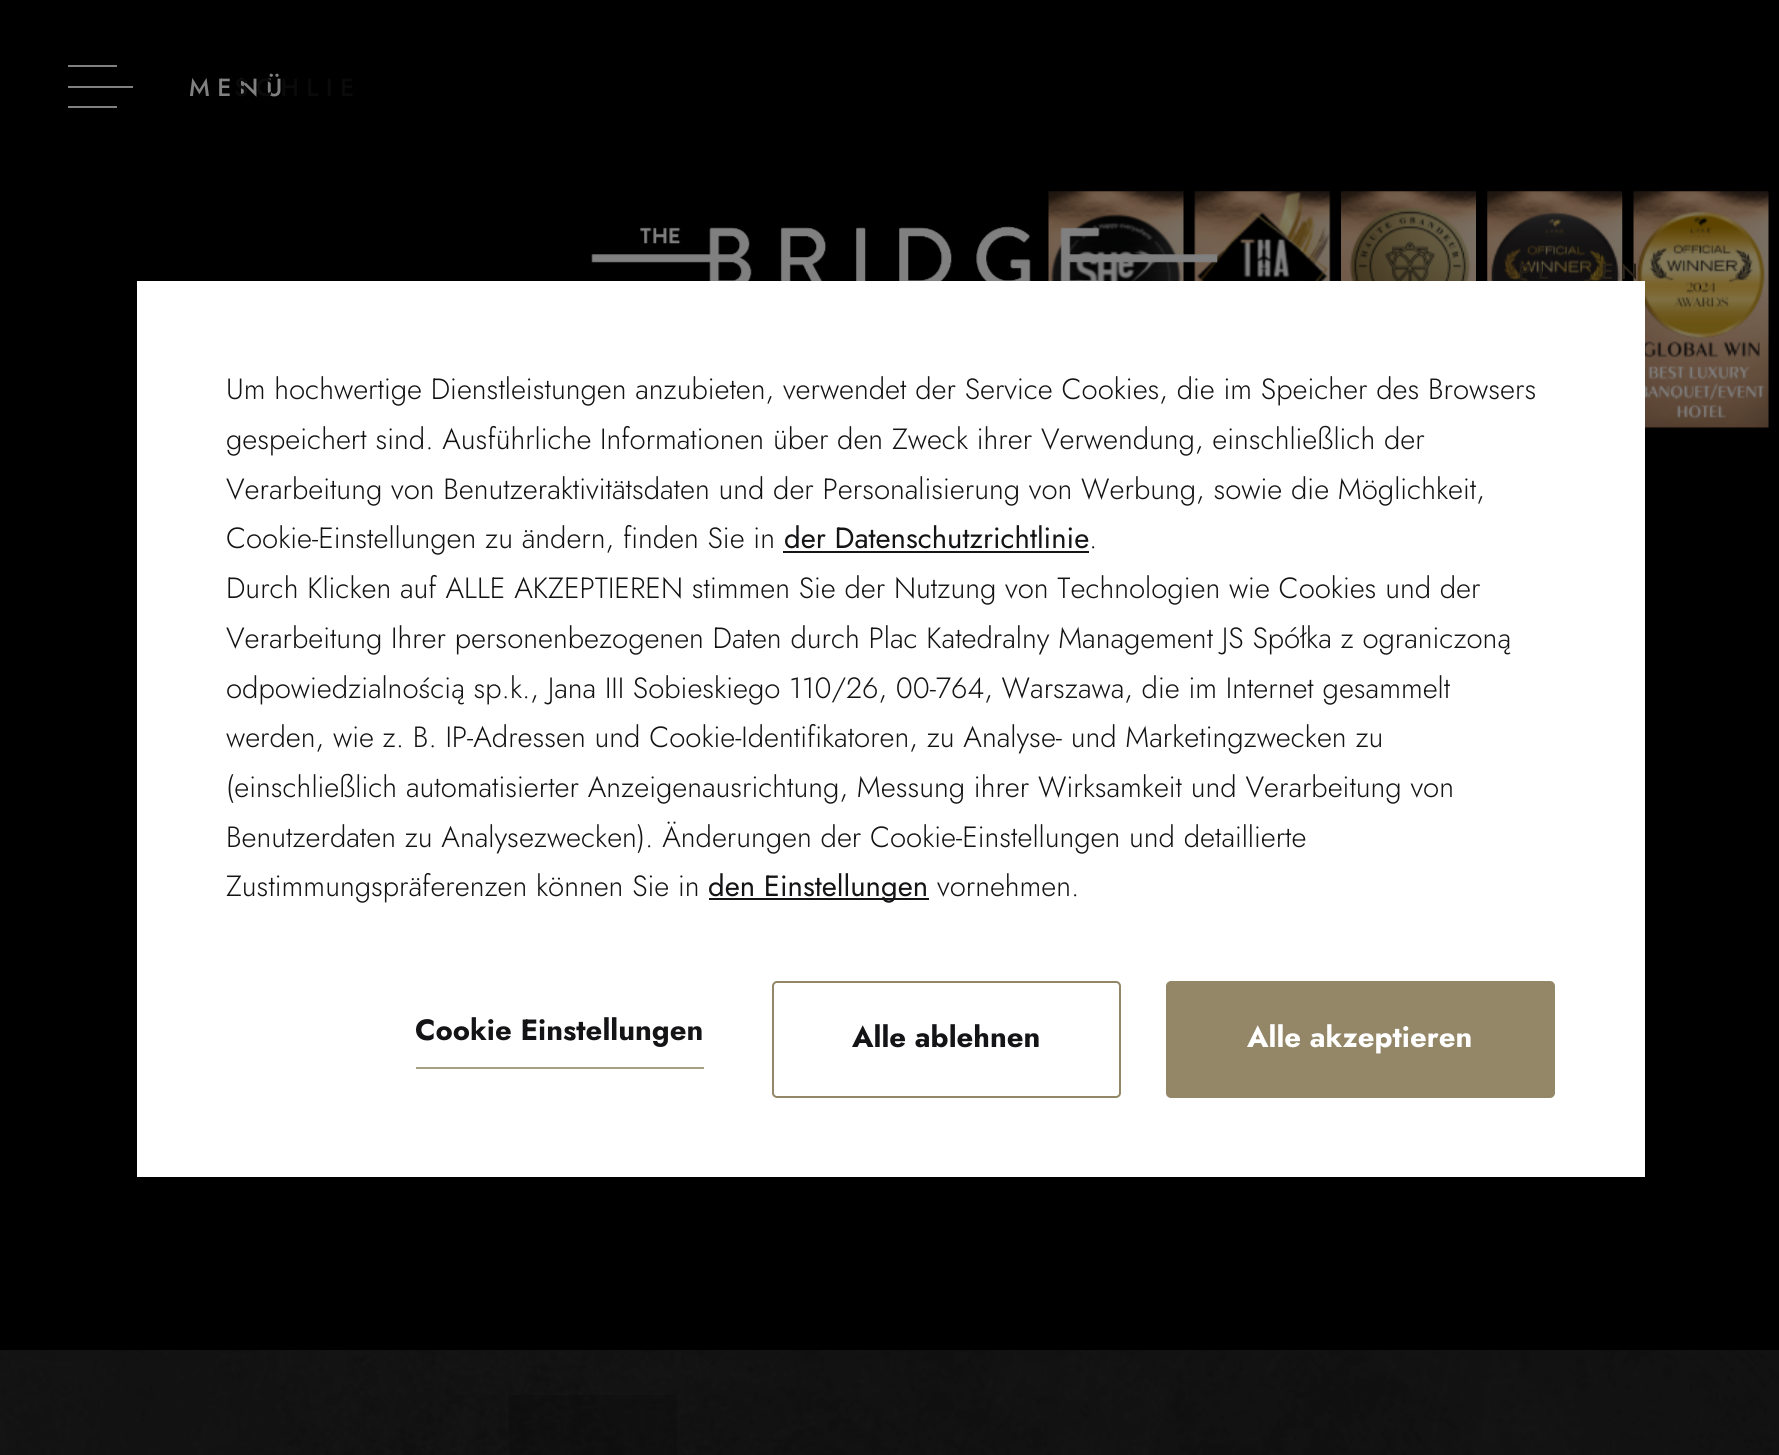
import math
import cairocffi as cairo

surface = cairo.ImageSurface(cairo.FORMAT_RGB24, 1779, 1455)
cr = cairo.Context(surface)
options = cairo.FontOptions()
options.set_hint_metrics(cairo.HINT_METRICS_OFF)
options.set_hint_style(cairo.HINT_STYLE_NONE)
cr.set_font_options(options)
cr.set_miter_limit(4)


def use_color(code):
    cr.set_source_rgb(*(v / 255 for v in bytes.fromhex(code[-6:])))


def spaced_text(x, y, s, letter, word):
    cr.move_to(x, y)
    for ch in s:
        cr.show_text(ch)
        cr.rel_move_to(letter + word * (ch == ' '), 0)


def round_rect(x, y, w, h, r):
    cr.new_sub_path()
    for i, (u, v) in enumerate([(x + w - r, y + h - r), (x + r, y + h - r), (x + r, y + r), (x + w - r, y + r)]):
        cr.arc(u, v, r, i * math.pi / 2, (i + 1) * math.pi / 2)
    cr.close_path()


def picture(path, x, y, w, h):
    cr.save()
    cr.set_source_surface(cairo.ImageSurface.create_from_png(path), x, y)
    cr.rectangle(x, y, w, h)
    cr.fill()
    cr.restore()


use_color("#ffffff")
cr.paint()
picture("img1.png", 0, 1350, 1779, 105)
use_color("#000000")
cr.rectangle(0, 0, 1779, 1350)
cr.fill()
picture("img2.png", 1048, 191, 136, 90)
picture("img3.png", 1194, 191, 137, 90)
picture("img4.png", 1341, 191, 135, 90)
picture("img5.png", 1487, 191, 136, 90)
picture("img6.png", 1633, 191, 136, 238)
cr.set_source_rgba(0, 0, 0, 0.15)
cr.rectangle(509, 1395, 168, 60)
cr.fill()
use_color("#808080")
cr.rectangle(68, 65, 49, 2)
cr.fill()
cr.rectangle(68, 86, 65, 2)
cr.fill()
cr.rectangle(68, 106, 49, 2)
cr.fill()
cr.select_font_face("Jost Medium")
cr.set_font_size(24.75)
spaced_text(189, 96, "MENÜ", 7.5, 0)
use_color("#0a0a0a")
spaced_text(234, 96, "SCHLIE", 7.5, 0)
picture("img7.png", 591, 226, 627, 55)
cr.set_font_size(22)
use_color("#221e17")
spaced_text(1518, 279, "PL", 7, 0)
use_color("#292219")
spaced_text(1601, 279, "EN", 7, 0)
use_color("#ffffff")
cr.rectangle(137, 281, 1508, 896)
cr.fill()
cr.select_font_face("Jost Light")
cr.set_font_size(29.25)
use_color("#141416")
cr.move_to(226, 399)
cr.show_text("Um hochwertige Dienstleistungen anzubieten, verwendet der Service Cookies, die im Speicher des Browsers")
cr.move_to(226, 449)
cr.show_text("gespeichert sind. Ausführliche Informationen über den Zweck ihrer Verwendung, einschließlich der")
cr.move_to(226, 499)
cr.show_text("Verarbeitung von Benutzeraktivitätsdaten und der Personalisierung von Werbung, sowie die Möglichkeit,")
cr.move_to(226, 548)
cr.show_text("Cookie-Einstellungen zu ändern, finden Sie in")
cr.select_font_face("Jost")
cr.move_to(784, 548)
cr.show_text("der Datenschutzrichtlinie")
cr.rectangle(783, 551, 306, 2)
cr.fill()
cr.select_font_face("Jost Light")
cr.move_to(1089, 548)
cr.show_text(".")
cr.move_to(226, 598)
cr.show_text("Durch Klicken auf ALLE AKZEPTIEREN stimmen Sie der Nutzung von Technologien wie Cookies und der")
cr.move_to(226, 648)
cr.show_text("Verarbeitung Ihrer personenbezogenen Daten durch Plac Katedralny Management JS Spółka z ograniczoną")
cr.move_to(226, 698)
cr.show_text("odpowiedzialnością sp.k., Jana III Sobieskiego 110/26, 00-764, Warszawa, die im Internet gesammelt")
cr.move_to(226, 747)
cr.show_text("werden, wie z. B. IP-Adressen und Cookie-Identifikatoren, zu Analyse- und Marketingzwecken zu")
cr.move_to(226, 797)
cr.show_text("(einschließlich automatisierter Anzeigenausrichtung, Messung ihrer Wirksamkeit und Verarbeitung von")
cr.move_to(226, 847)
cr.show_text("Benutzerdaten zu Analysezwecken). Änderungen der Cookie-Einstellungen und detaillierte")
cr.move_to(226, 896)
cr.show_text("Zustimmungspräferenzen können Sie in")
cr.rectangle(709, 898, 220, 2)
cr.fill()
cr.select_font_face("Jost")
cr.move_to(708, 896)
cr.show_text("den Einstellungen")
cr.select_font_face("Jost Light")
cr.move_to(937, 896)
cr.show_text("vornehmen.")
cr.select_font_face("Jost", cairo.FONT_SLANT_NORMAL, cairo.FONT_WEIGHT_BOLD)
cr.move_to(415, 1040)
cr.show_text("Cookie Einstellungen")
use_color("#a99f85")
cr.rectangle(416, 1067, 288, 2)
cr.fill()
round_rect(773, 982, 347, 115, 4)
use_color("#938767")
cr.stroke()
use_color("#141416")
cr.move_to(852, 1047)
cr.show_text("Alle ablehnen")
use_color("#938767")
round_rect(1167, 982, 387, 115, 4)
cr.fill_preserve()
cr.stroke()
use_color("#ffffff")
cr.move_to(1247, 1047)
cr.show_text("Alle akzeptieren")
surface.write_to_png("result.png")
